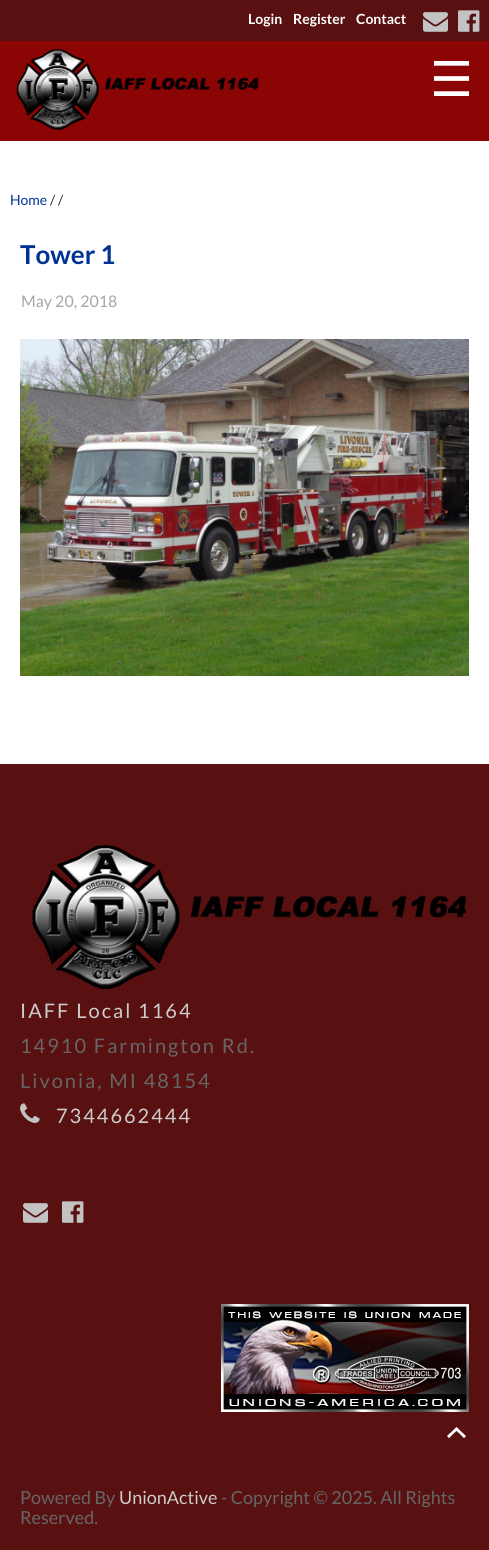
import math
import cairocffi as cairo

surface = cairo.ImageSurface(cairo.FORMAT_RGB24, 489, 1550)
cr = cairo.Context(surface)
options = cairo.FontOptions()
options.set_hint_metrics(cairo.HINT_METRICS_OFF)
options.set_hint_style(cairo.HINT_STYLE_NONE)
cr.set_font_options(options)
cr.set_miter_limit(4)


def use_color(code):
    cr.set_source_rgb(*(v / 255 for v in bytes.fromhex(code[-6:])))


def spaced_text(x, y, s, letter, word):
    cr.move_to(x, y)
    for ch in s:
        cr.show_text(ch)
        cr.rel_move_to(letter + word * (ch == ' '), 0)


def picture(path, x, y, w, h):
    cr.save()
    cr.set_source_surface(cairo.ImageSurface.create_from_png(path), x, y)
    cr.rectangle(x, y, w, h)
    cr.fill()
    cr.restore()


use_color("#ffffff")
cr.paint()
use_color("#581010")
cr.rectangle(0, 0, 489, 41)
cr.fill()
cr.select_font_face("Lato", cairo.FONT_SLANT_NORMAL, cairo.FONT_WEIGHT_BOLD)
cr.set_font_size(14)
use_color("#ffffff")
cr.move_to(248, 24)
cr.show_text("Login")
cr.move_to(293, 24)
cr.show_text("Register")
cr.move_to(356, 24)
cr.show_text("Contact")
picture("img1.png", 423, 12, 25, 20)
picture("img2.png", 458, 10, 22, 22)
use_color("#8b0505")
cr.rectangle(0, 41, 489, 100)
cr.fill()
picture("img3.png", 16, 48, 243, 83)
cr.select_font_face("DejaVu Sans")
cr.set_font_size(48)
use_color("#ffffff")
cr.move_to(430, 96)
cr.show_text("☰")
cr.select_font_face("Lato")
cr.set_font_size(14)
use_color("#003194")
cr.move_to(10, 205)
cr.show_text("Home")
use_color("#333333")
cr.move_to(50, 205)
cr.show_text("/ /")
cr.select_font_face("Lato", cairo.FONT_SLANT_NORMAL, cairo.FONT_WEIGHT_BOLD)
cr.set_font_size(26)
use_color("#003194")
cr.move_to(20, 264)
cr.show_text("Tower 1")
cr.select_font_face("Lato")
cr.set_font_size(16)
use_color("#a6a6a6")
cr.move_to(21, 307)
cr.show_text("May 20, 2018")
picture("img4.png", 20, 339, 449, 337)
use_color("#581010")
cr.rectangle(0, 764, 489, 786)
cr.fill()
picture("img5.png", 32, 844, 434, 145)
cr.set_font_size(20)
use_color("#cccccc")
spaced_text(20, 1018, "IAFF Local 1164", 2, 0)
use_color("#666666")
spaced_text(20, 1053, "14910 Farmington Rd.", 2, 0)
spaced_text(20, 1088, "Livonia, MI 48154", 2, 0)
picture("img6.png", 20, 1103, 20, 20)
use_color("#cccccc")
spaced_text(56, 1123, "7344662444", 2, 0)
picture("img1.png", 23, 1203, 25, 20)
picture("img2.png", 62, 1201, 22, 22)
picture("img7.png", 221, 1304, 248, 108)
picture("img8.png", 447, 1427, 19, 11)
cr.set_font_size(18)
use_color("#666666")
cr.move_to(20, 1504)
cr.show_text("Powered By")
use_color("#cccccc")
cr.move_to(119, 1504)
cr.show_text("UnionActive")
use_color("#666666")
cr.move_to(221, 1504)
cr.show_text("- Copyright © 2025. All Rights")
cr.move_to(20, 1524)
cr.show_text("Reserved.")
surface.write_to_png("result.png")
